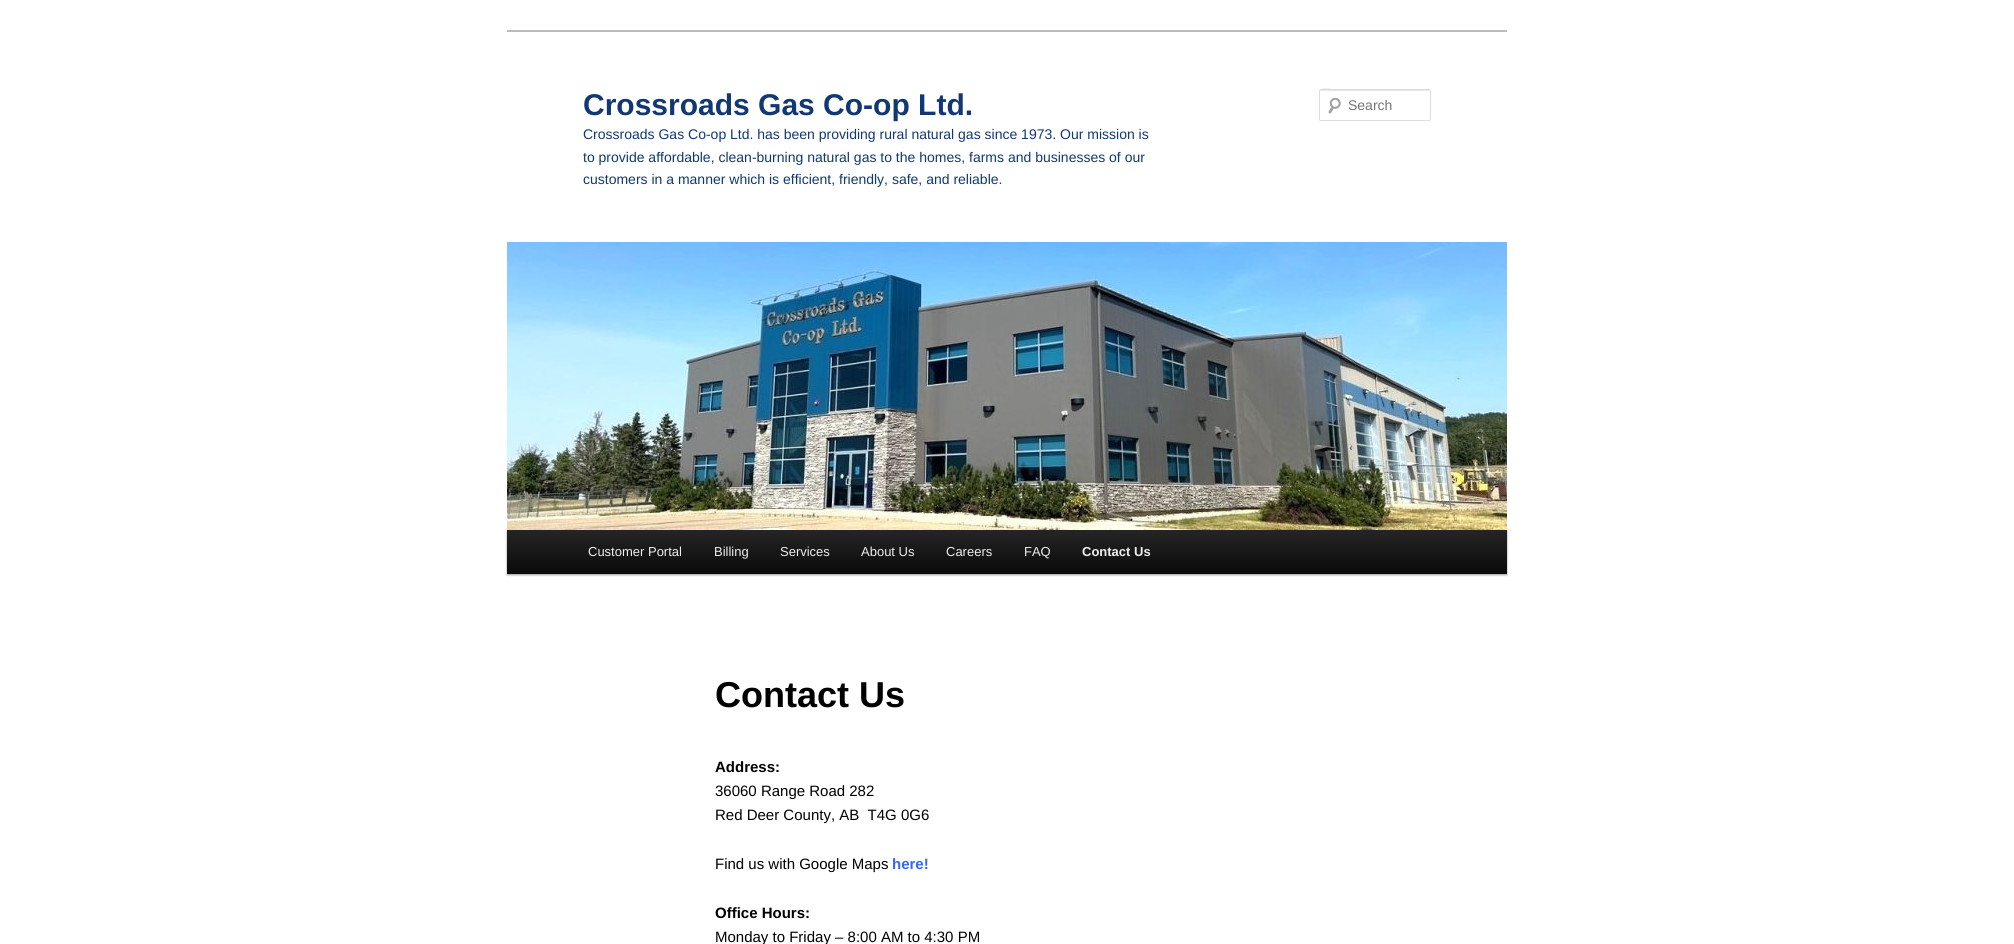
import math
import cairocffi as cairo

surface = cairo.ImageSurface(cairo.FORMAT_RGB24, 2014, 944)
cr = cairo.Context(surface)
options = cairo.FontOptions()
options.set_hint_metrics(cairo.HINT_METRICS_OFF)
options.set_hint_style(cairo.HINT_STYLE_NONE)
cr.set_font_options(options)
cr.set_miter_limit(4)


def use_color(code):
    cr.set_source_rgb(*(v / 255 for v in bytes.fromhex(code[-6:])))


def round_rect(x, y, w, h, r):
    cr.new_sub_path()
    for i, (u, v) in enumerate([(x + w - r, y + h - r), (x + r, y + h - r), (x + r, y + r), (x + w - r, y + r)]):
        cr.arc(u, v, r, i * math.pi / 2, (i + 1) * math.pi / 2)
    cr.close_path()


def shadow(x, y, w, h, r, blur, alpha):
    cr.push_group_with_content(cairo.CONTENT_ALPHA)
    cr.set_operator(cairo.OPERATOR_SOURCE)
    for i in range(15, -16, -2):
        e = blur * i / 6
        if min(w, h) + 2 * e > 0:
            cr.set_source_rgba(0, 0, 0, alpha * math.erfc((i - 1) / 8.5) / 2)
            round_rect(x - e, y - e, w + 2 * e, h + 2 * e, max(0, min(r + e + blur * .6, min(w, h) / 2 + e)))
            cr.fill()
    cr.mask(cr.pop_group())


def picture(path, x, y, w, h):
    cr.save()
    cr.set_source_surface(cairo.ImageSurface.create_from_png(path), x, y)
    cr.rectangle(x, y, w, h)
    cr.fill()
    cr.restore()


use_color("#ffffff")
cr.paint()
use_color("#bbbbbb")
cr.rectangle(507, 30, 1000, 2)
cr.fill()
cr.select_font_face("Liberation Sans", cairo.FONT_SLANT_NORMAL, cairo.FONT_WEIGHT_BOLD)
cr.set_font_size(30)
use_color("#113872")
cr.move_to(583, 115)
cr.show_text("Crossroads Gas Co-op Ltd.")
cr.select_font_face("Liberation Sans")
cr.set_font_size(14)
cr.move_to(583, 139)
cr.show_text("Crossroads Gas Co-op Ltd. has been providing rural natural gas since 1973. Our mission is")
cr.move_to(583, 162)
cr.show_text("to provide affordable, clean-burning natural gas to the homes, farms and businesses of our")
cr.move_to(583, 184)
cr.show_text("customers in a manner which is efficient, friendly, safe, and reliable.")
picture("img1.png", 1328, 97, 13, 17)
use_color("#e6e6e6")
cr.new_path()
cr.move_to(1321, 91)
cr.line_to(1430, 91)
cr.line_to(1430, 92)
cr.line_to(1429, 90)
cr.line_to(1339, 90)
cr.curve_to(1335, 90, 1320, 85, 1320, 92)
cr.curve_to(1320, 91, 1320, 91, 1321, 91)
cr.close_path()
cr.fill()
round_rect(1319.5, 89.5, 111, 31, 1.5)
use_color("#dddddd")
cr.set_line_width(1)
cr.stroke()
use_color("#757575")
cr.move_to(1348, 110)
cr.show_text("Search")
use_color("#000000")
shadow(507, 531, 1000, 44, 0, 1, 0.4)
picture("img2.png", 507, 242, 1000, 288)
gradient = cairo.LinearGradient(1007, 530, 1007, 574)
gradient.add_color_stop_rgba(0, 0.145, 0.145, 0.145, 1)
gradient.add_color_stop_rgba(1, 0.039, 0.039, 0.039, 1)
cr.set_source(gradient)
cr.rectangle(507, 530, 1000, 44)
cr.fill()
cr.set_font_size(13)
use_color("#eeeeee")
cr.move_to(588, 556)
cr.show_text("Customer Portal")
cr.move_to(714, 556)
cr.show_text("Billing")
cr.move_to(780, 556)
cr.show_text("Services")
cr.move_to(861, 556)
cr.show_text("About Us")
cr.move_to(946, 556)
cr.show_text("Careers")
cr.move_to(1024, 556)
cr.show_text("FAQ")
cr.select_font_face("Liberation Sans", cairo.FONT_SLANT_NORMAL, cairo.FONT_WEIGHT_BOLD)
cr.move_to(1082, 556)
cr.show_text("Contact Us")
cr.set_font_size(36)
use_color("#000000")
cr.move_to(715, 707)
cr.show_text("Contact Us")
cr.set_font_size(15)
cr.move_to(715, 772)
cr.show_text("Address:")
cr.select_font_face("Liberation Sans")
cr.move_to(715, 796)
cr.show_text("36060 Range Road 282")
cr.move_to(715, 820)
cr.show_text("Red Deer County, AB  T4G 0G6")
cr.move_to(715, 869)
cr.show_text("Find us with Google Maps")
cr.select_font_face("Liberation Sans", cairo.FONT_SLANT_NORMAL, cairo.FONT_WEIGHT_BOLD)
use_color("#3366ff")
cr.move_to(892, 869)
cr.show_text("here!")
use_color("#000000")
cr.move_to(715, 918)
cr.show_text("Office Hours:")
cr.select_font_face("Liberation Sans")
cr.move_to(715, 942)
cr.show_text("Monday to Friday – 8:00 AM to 4:30 PM")
surface.write_to_png("result.png")
